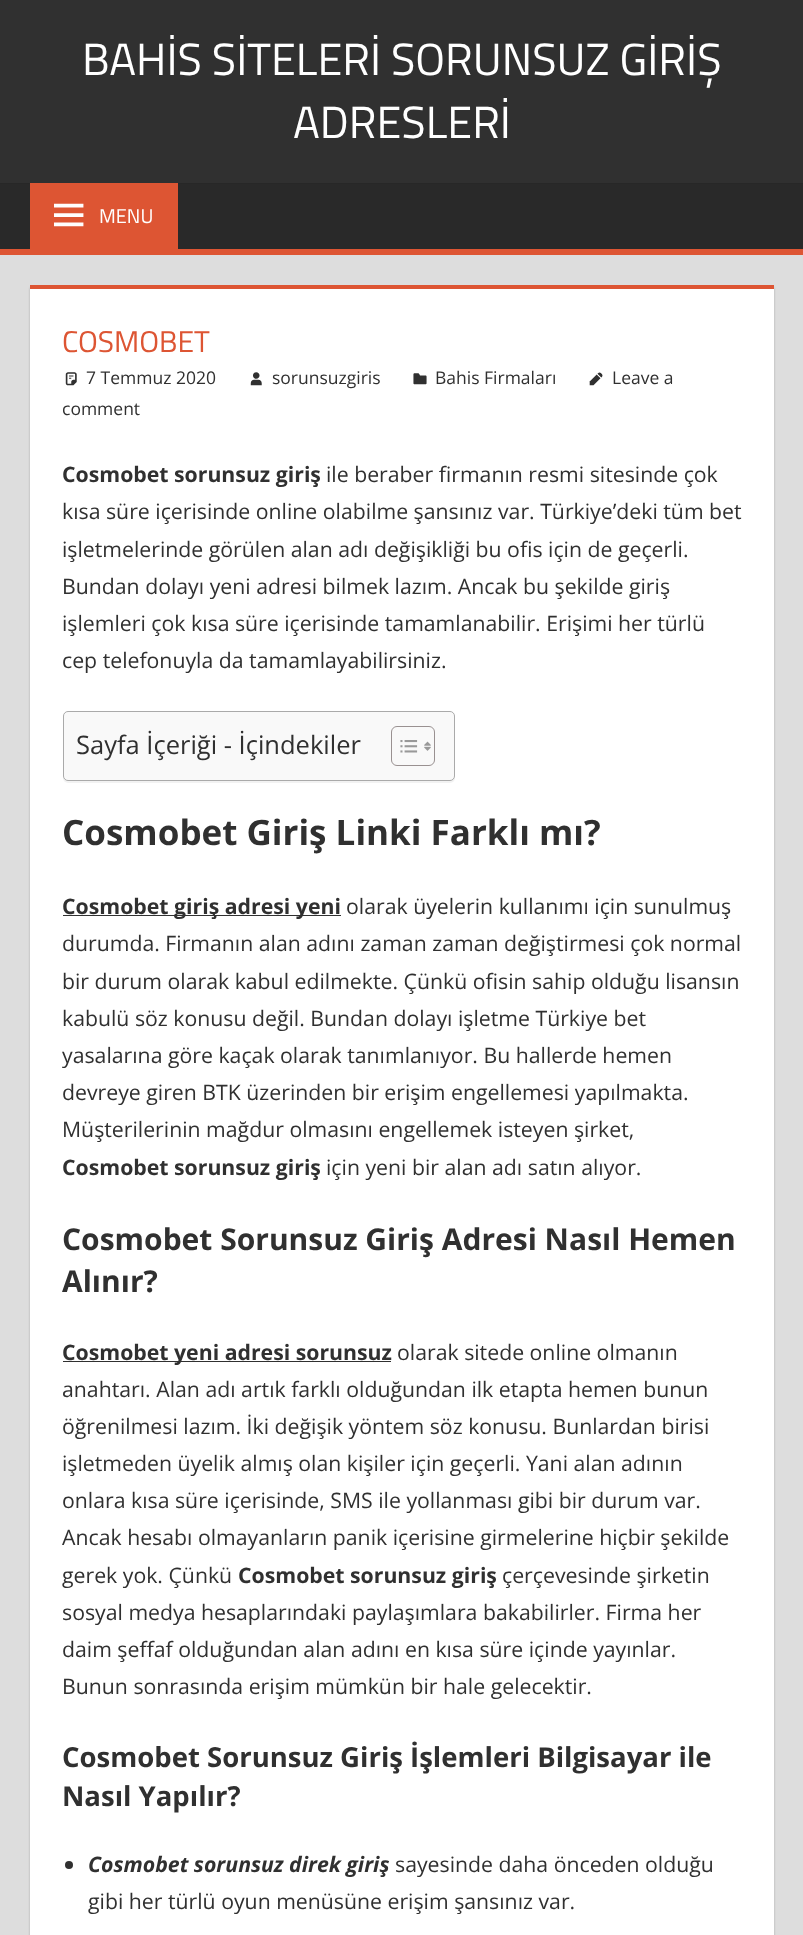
<svg xmlns="http://www.w3.org/2000/svg" width="803" height="1935" viewBox="0 0 803 1935">
  <rect width="100%" height="100%" fill="#ddd"/>
  <path d="M0 0h803v183H0z" fill="#303030"/>
  <path d="M0 184h803v65H0z" fill="#292929"/>
  <path d="M0 183h803v1H0z" fill="#272727"/>
  <path d="M0 249h803v6H0z" fill="#d53"/>
  <path d="M30 183h148v66H30z" fill="#d53"/>
  <image x="54" y="203" width="30" height="24" href="img/1.png"/>
  <path d="M30 288h744v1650H30z" fill="#aaa" filter="blur(1px)"/>
  <path d="M30 289h744v1646H30z" fill="#fff"/>
  <path d="M30 285h744v4H30z" fill="#d53"/>
  <image x="65" y="372" width="12" height="14" href="img/2.png"/>
  <image x="250" y="372" width="12" height="14" href="img/3.png"/>
  <image x="413" y="373" width="14" height="12" href="img/4.png"/>
  <image x="589" y="372" width="14" height="14" href="img/5.png"/>
  <rect x="63" y="713" width="392" height="70" rx="5" fill="#0000000d" filter="blur(0.5px)"/>
  <rect x="63.5" y="711.5" width="391" height="69" rx="4.5" fill="#f9f9f9" stroke="#aaa"/>
  <rect x="391.5" y="726.5" width="43" height="39" rx="5.5" fill="none" stroke="#999191"/>
  <image x="400" y="740" width="18" height="13" href="img/6.png"/>
  <image x="424" y="741" width="7" height="10" href="img/7.png"/>
  <path d="M63 915h278v1H63z" fill="#303030"/>
  <path d="M63 1361h328v1H63z" fill="#303030"/>
  <circle cx="69" cy="1865" r="4" fill="#303030"/>
  <g font-family="Titillium Web" font-size="45" fill="#fff">
    <text x="82" y="75">BAHİS SİTELERİ SORUNSUZ GİRİŞ</text>
    <text x="293" y="138">ADRESLERİ</text>
  </g>
  <text x="99" y="223" font-family="Titillium Web" font-size="20" fill="#fff">MENU</text>
  <text x="62" y="352" font-family="Titillium Web" font-size="30" fill="#d53">COSMOBET</text>
  <g font-family="Open Sans" font-size="17.5" fill="#303030">
    <text x="86" y="384">7 Temmuz 2020</text>
    <text x="272" y="384">sorunsuzgiris</text>
    <text x="435" y="384">Bahis Firmaları</text>
    <text x="612" y="384">Leave a</text>
    <text x="62" y="415">comment</text>
  </g>
  <text x="62" y="482" font-family="Open Sans" font-size="21.25" font-weight="bold" fill="#303030">Cosmobet sorunsuz giriş</text>
  <g font-family="Open Sans" font-size="21.25" fill="#303030">
    <text x="326" y="482">ile beraber firmanın resmi sitesinde çok</text>
    <text x="62" y="519">kısa süre içerisinde online olabilme şansınız var. Türkiye’deki tüm bet</text>
    <text x="62" y="557">işletmelerinde görülen alan adı değişikliği bu ofis için de geçerli.</text>
    <text x="62" y="594">Bundan dolayı yeni adresi bilmek lazım. Ancak bu şekilde giriş</text>
    <text x="62" y="631">işlemleri çok kısa süre içerisinde tamamlanabilir. Erişimi her türlü</text>
    <text x="62" y="668">cep telefonuyla da tamamlayabilirsiniz.</text>
  </g>
  <text x="76" y="754" font-family="Open Sans" font-size="25.5" fill="#303030">Sayfa İçeriği - İçindekiler</text>
  <text x="62" y="845" font-family="Open Sans" font-size="35" font-weight="bold" fill="#303030">Cosmobet Giriş Linki Farklı mı?</text>
  <text x="62" y="914" font-family="Open Sans" font-size="21.25" font-weight="bold" fill="#303030">Cosmobet giriş adresi yeni</text>
  <g font-family="Open Sans" font-size="21.25" fill="#303030">
    <text x="346" y="914">olarak üyelerin kullanımı için sunulmuş</text>
    <text x="62" y="951">durumda. Firmanın alan adını zaman zaman değiştirmesi çok normal</text>
    <text x="62" y="989">bir durum olarak kabul edilmekte. Çünkü ofisin sahip olduğu lisansın</text>
    <text x="62" y="1026">kabulü söz konusu değil. Bundan dolayı işletme Türkiye bet</text>
    <text x="62" y="1063">yasalarına göre kaçak olarak tanımlanıyor. Bu hallerde hemen</text>
    <text x="62" y="1100">devreye giren BTK üzerinden bir erişim engellemesi yapılmakta.</text>
    <text x="62" y="1137">Müşterilerinin mağdur olmasını engellemek isteyen şirket,</text>
  </g>
  <text x="62" y="1175" font-family="Open Sans" font-size="21.25" font-weight="bold" fill="#303030">Cosmobet sorunsuz giriş</text>
  <text x="326" y="1175" font-family="Open Sans" font-size="21.25" fill="#303030">için yeni bir alan adı satın alıyor.</text>
  <g font-family="Open Sans" font-size="30" font-weight="bold" fill="#303030">
    <text x="62" y="1250">Cosmobet Sorunsuz Giriş Adresi Nasıl Hemen</text>
    <text x="62" y="1292">Alınır?</text>
  </g>
  <text x="62" y="1360" font-family="Open Sans" font-size="21.25" font-weight="bold" fill="#303030">Cosmobet yeni adresi sorunsuz</text>
  <g font-family="Open Sans" font-size="21.25" fill="#303030">
    <text x="397" y="1360">olarak sitede online olmanın</text>
    <text x="62" y="1397">anahtarı. Alan adı artık farklı olduğundan ilk etapta hemen bunun</text>
    <text x="62" y="1434">öğrenilmesi lazım. İki değişik yöntem söz konusu. Bunlardan birisi</text>
    <text x="62" y="1471">işletmeden üyelik almış olan kişiler için geçerli. Yani alan adının</text>
    <text x="62" y="1508">onlara kısa süre içerisinde, SMS ile yollanması gibi bir durum var.</text>
    <text x="62" y="1545">Ancak hesabı olmayanların panik içerisine girmelerine hiçbir şekilde</text>
    <text x="62" y="1583">gerek yok. Çünkü</text>
  </g>
  <text x="238" y="1583" font-family="Open Sans" font-size="21.25" font-weight="bold" fill="#303030">Cosmobet sorunsuz giriş</text>
  <g font-family="Open Sans" font-size="21.25" fill="#303030">
    <text x="502" y="1583">çerçevesinde şirketin</text>
    <text x="62" y="1620">sosyal medya hesaplarındaki paylaşımlara bakabilirler. Firma her</text>
    <text x="62" y="1657">daim şeffaf olduğundan alan adını en kısa süre içinde yayınlar.</text>
    <text x="62" y="1694">Bunun sonrasında erişim mümkün bir hale gelecektir.</text>
  </g>
  <g font-family="Open Sans" font-size="27.5" font-weight="bold" fill="#303030">
    <text x="62" y="1767">Cosmobet Sorunsuz Giriş İşlemleri Bilgisayar ile</text>
    <text x="62" y="1806">Nasıl Yapılır?</text>
  </g>
  <text x="88" y="1872" font-family="Open Sans" font-size="21.25" font-weight="bold" font-style="italic" fill="#303030">Cosmobet sorunsuz direk giriş</text>
  <g font-family="Open Sans" font-size="21.25" fill="#303030">
    <text x="395" y="1872">sayesinde daha önceden olduğu</text>
    <text x="88" y="1909">gibi her türlü oyun menüsüne erişim şansınız var.</text>
  </g>
</svg>
